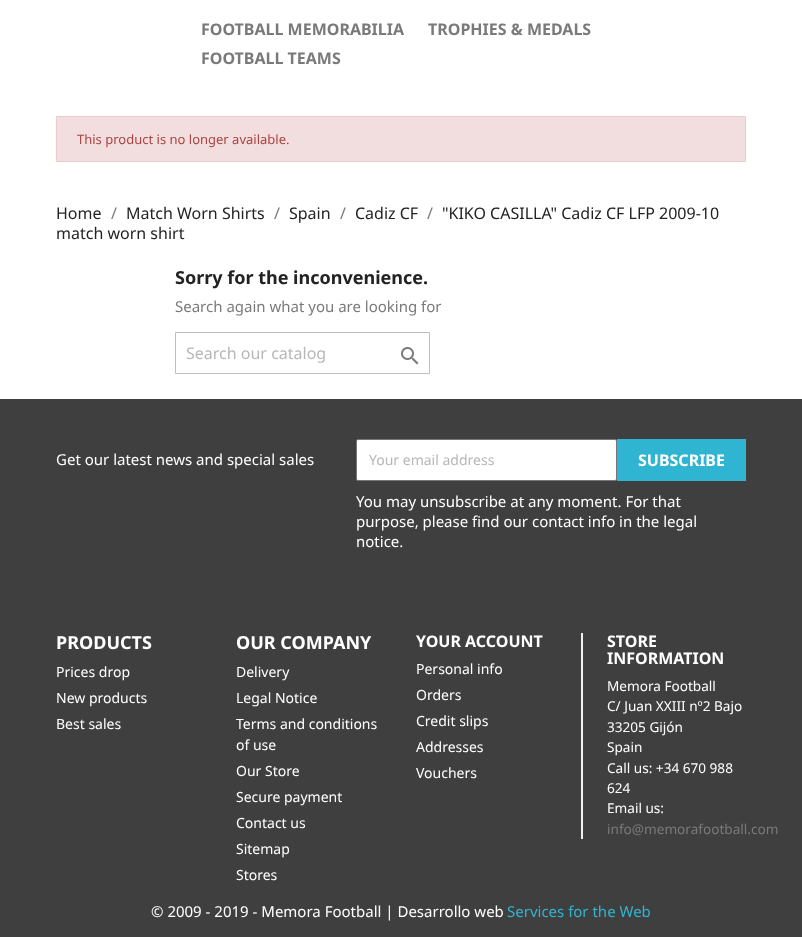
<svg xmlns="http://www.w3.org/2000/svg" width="802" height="937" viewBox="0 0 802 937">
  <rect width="100%" height="100%" fill="#fff"/>
  <path d="M56.5 116.5h689v45H56.5z" fill="#f2dede" stroke="#ebcccc"/>
  <path d="M175.5 332.5h254v41H175.5z" fill="none" stroke="#bfbfbf"/>
  <image x="401" y="347" width="18" height="18" href="img/1.png"/>
  <path d="M0 399h802v538H0z" fill="#3f3f3f"/>
  <rect x="356.5" y="439.5" width="260" height="41" rx="1.5" fill="#fff" stroke="#767676"/>
  <path d="M617 439h129v42H617z" fill="#2fb5d2"/>
  <path d="M581 633h2v206H581z" fill="#f1f1f1"/>
  <g font-family="Noto Sans" font-size="16" font-weight="bold" fill="#7a7a7a">
    <text x="201" y="35">FOOTBALL MEMORABILIA</text>
    <text x="428" y="35">TROPHIES &amp; MEDALS</text>
    <text x="201" y="64">FOOTBALL TEAMS</text>
  </g>
  <text x="77" y="144" font-family="Noto Sans" font-size="13" fill="#a94442">This product is no longer available.</text>
  <text x="56" y="219" font-family="Noto Sans" font-size="16" fill="#232323">Home</text>
  <text x="111" y="219" font-family="Noto Sans" font-size="16" fill="#7a7a7a">/</text>
  <text x="126" y="219" font-family="Noto Sans" font-size="16" fill="#232323">Match Worn Shirts</text>
  <text x="274" y="219" font-family="Noto Sans" font-size="16" fill="#7a7a7a">/</text>
  <text x="289" y="219" font-family="Noto Sans" font-size="16" fill="#232323">Spain</text>
  <text x="340" y="219" font-family="Noto Sans" font-size="16" fill="#7a7a7a">/</text>
  <text x="355" y="219" font-family="Noto Sans" font-size="16" fill="#232323">Cadiz CF</text>
  <text x="427" y="219" font-family="Noto Sans" font-size="16" fill="#7a7a7a">/</text>
  <g font-family="Noto Sans" font-size="16" fill="#232323">
    <text x="442" y="219">"KIKO CASILLA" Cadiz CF LFP 2009-10</text>
    <text x="56" y="239">match worn shirt</text>
  </g>
  <text x="175" y="284" font-family="Noto Sans" font-size="18" font-weight="bold" fill="#232323">Sorry for the inconvenience.</text>
  <text x="175" y="312" font-family="Noto Sans" font-size="15" fill="#7a7a7a">Search again what you are looking for</text>
  <text x="186" y="359" font-family="Noto Sans" font-size="16" fill="#b7b7b7">Search our catalog</text>
  <text x="56" y="465" font-family="Noto Sans" font-size="15" fill="#fff">Get our latest news and special sales</text>
  <text x="369" y="465" font-family="Noto Sans" font-size="14" fill="#b7b7b7">Your email address</text>
  <text x="638" y="466" font-family="Noto Sans" font-size="16" font-weight="bold" fill="#fff">SUBSCRIBE</text>
  <g font-family="Noto Sans" font-size="15" fill="#fff">
    <text x="356" y="507">You may unsubscribe at any moment. For that</text>
    <text x="356" y="527">purpose, please find our contact info in the legal</text>
    <text x="356" y="547">notice.</text>
  </g>
  <text x="56" y="649" font-family="Noto Sans" font-size="18" font-weight="bold" fill="#fff">PRODUCTS</text>
  <g font-family="Noto Sans" font-size="14" fill="#fff">
    <text x="56" y="677">Prices drop</text>
    <text x="56" y="703">New products</text>
    <text x="56" y="729">Best sales</text>
  </g>
  <text x="236" y="649" font-family="Noto Sans" font-size="18" font-weight="bold" fill="#fff">OUR COMPANY</text>
  <g font-family="Noto Sans" font-size="14" fill="#fff">
    <text x="236" y="677">Delivery</text>
    <text x="236" y="703">Legal Notice</text>
    <text x="236" y="729">Terms and conditions</text>
    <text x="236" y="750">of use</text>
    <text x="236" y="776">Our Store</text>
    <text x="236" y="802">Secure payment</text>
    <text x="236" y="828">Contact us</text>
    <text x="236" y="854">Sitemap</text>
    <text x="236" y="880">Stores</text>
  </g>
  <text x="416" y="647" font-family="Noto Sans" font-size="16" font-weight="bold" fill="#fff">YOUR ACCOUNT</text>
  <g font-family="Noto Sans" font-size="14" fill="#fff">
    <text x="416" y="674">Personal info</text>
    <text x="416" y="700">Orders</text>
    <text x="416" y="726">Credit slips</text>
    <text x="416" y="752">Addresses</text>
    <text x="416" y="778">Vouchers</text>
  </g>
  <g font-family="Noto Sans" font-size="16" font-weight="bold" fill="#fff">
    <text x="607" y="647">STORE</text>
    <text x="607" y="664">INFORMATION</text>
  </g>
  <g font-family="Noto Sans" font-size="13.6" fill="#fff">
    <text x="607" y="691">Memora Football</text>
    <text x="607" y="711">C/ Juan XXIII nº2 Bajo</text>
    <text x="607" y="732">33205 Gijón</text>
    <text x="607" y="752">Spain</text>
    <text x="607" y="773">Call us: +34 670 988</text>
    <text x="607" y="793">624</text>
    <text x="607" y="813">Email us:</text>
  </g>
  <text x="607" y="834" font-family="Noto Sans" font-size="13.6" fill="#7a7a7a">info@memorafootball.com</text>
  <text x="151" y="917" font-family="Noto Sans" font-size="15" fill="#fff">© 2009 - 2019 - Memora Football | Desarrollo web</text>
  <text x="507" y="917" font-family="Noto Sans" font-size="15" fill="#2fb5d2">Services for the Web</text>
</svg>
